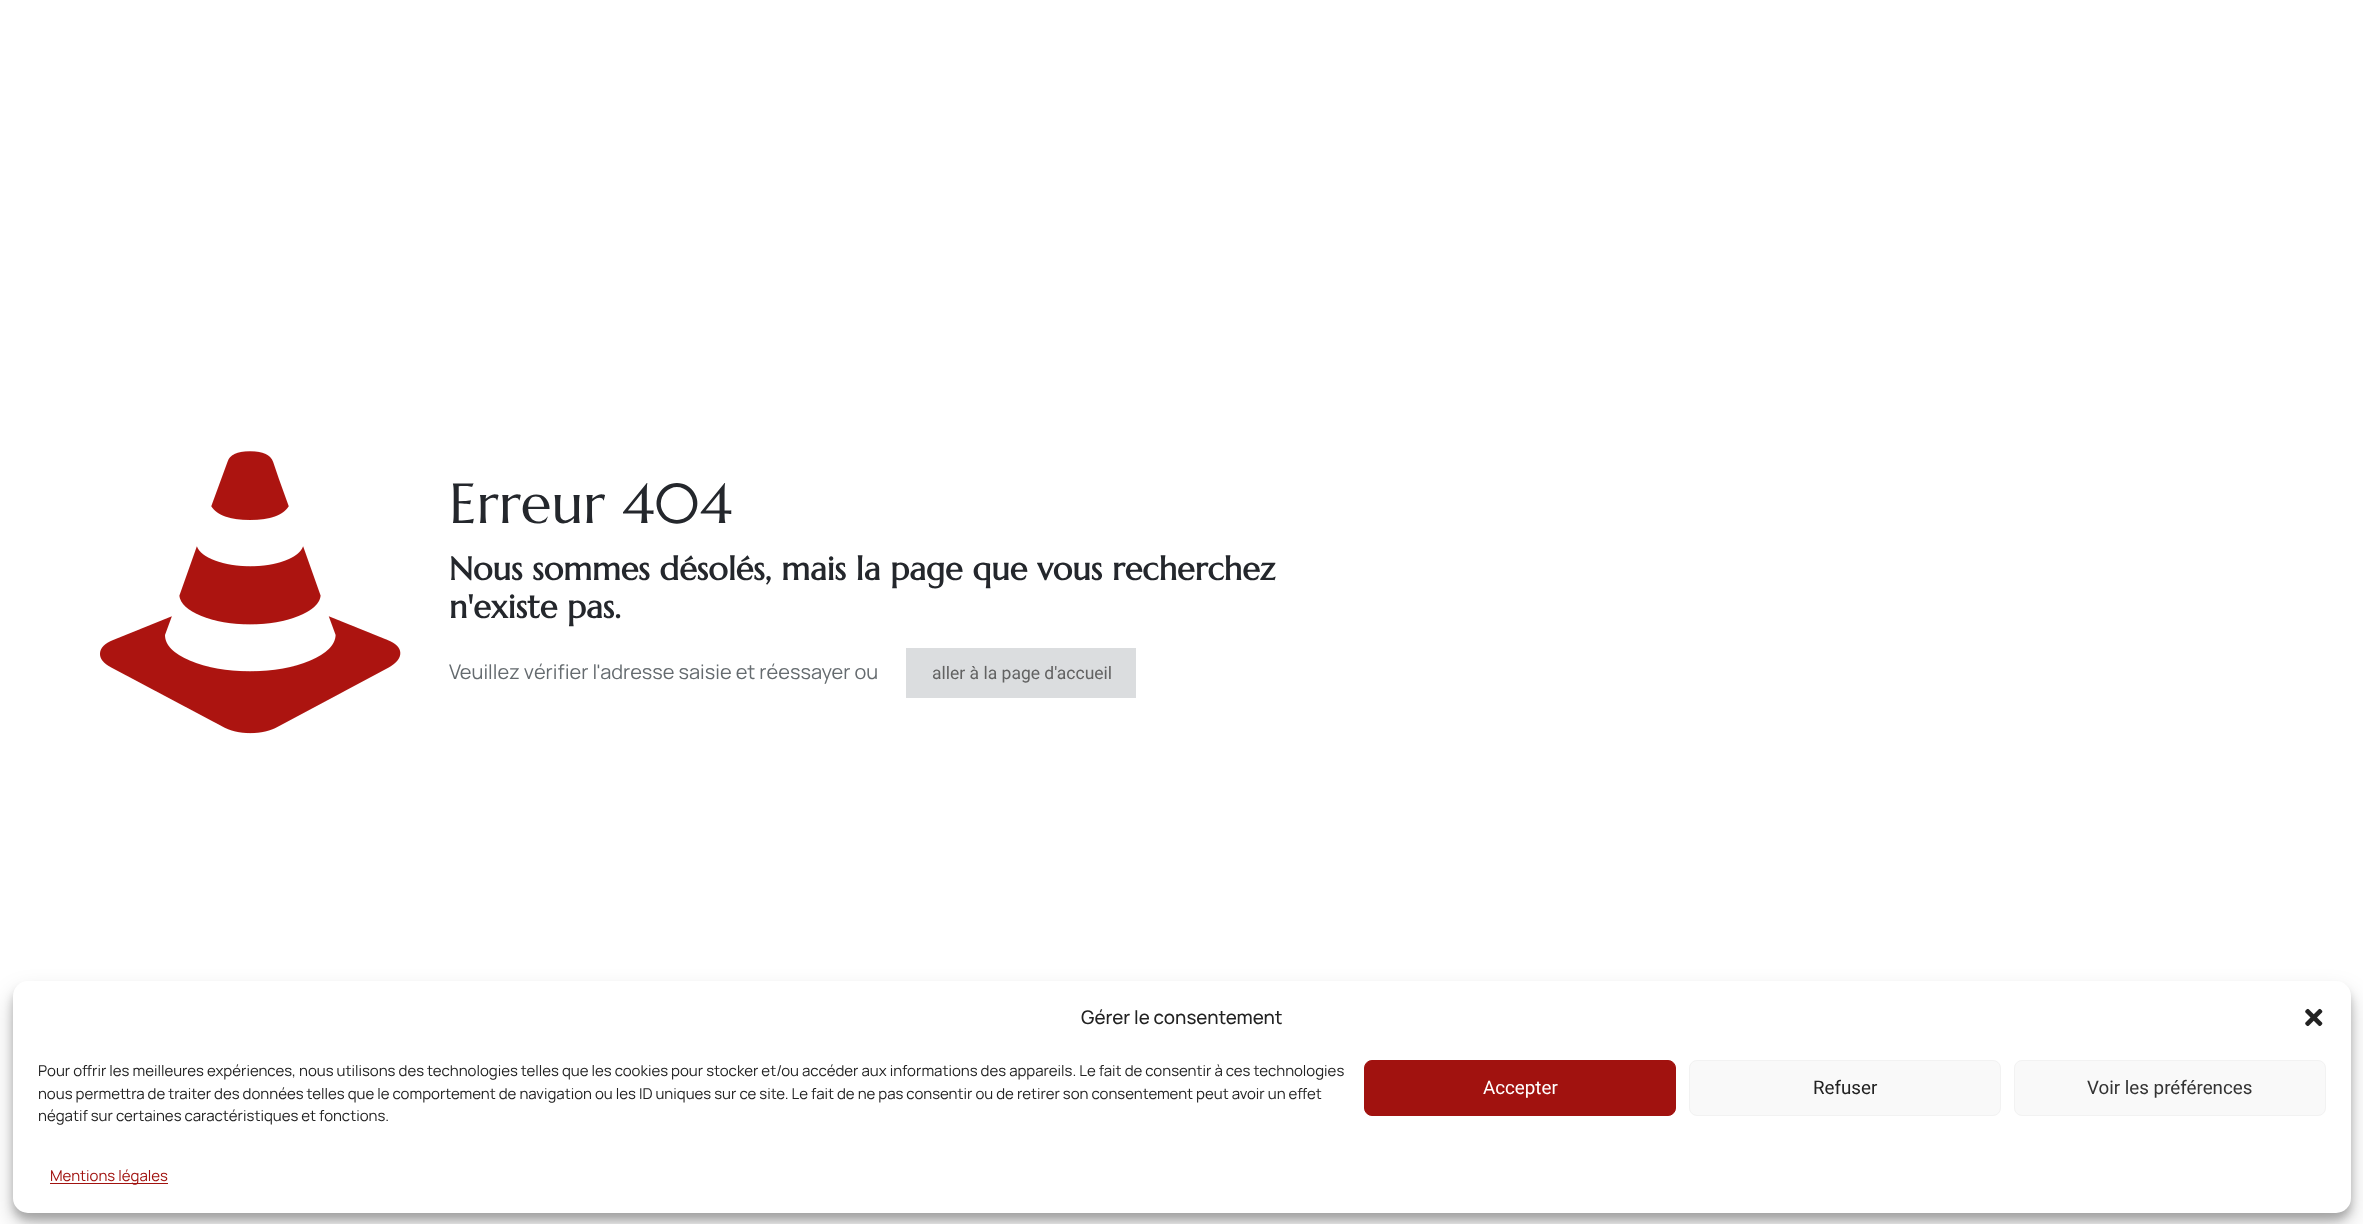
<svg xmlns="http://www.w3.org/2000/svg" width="2363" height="1224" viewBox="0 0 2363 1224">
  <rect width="100%" height="100%" fill="#fff"/>
  <image x="100" y="451" width="301" height="283" href="img/1.png"/>
  <path d="M906 648h230v50H906z" fill="#dbdddf"/>
  <rect x="13" y="989" width="2338" height="231" rx="15" fill="#0000003b" filter="blur(4px)"/>
  <rect x="13" y="994" width="2338" height="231" rx="15" fill="#00000030" filter="blur(12.5px)"/>
  <rect x="13" y="981" width="2338" height="232" rx="15" fill="#fff"/>
  <image x="2305" y="1008" width="18" height="19" href="img/2.png"/>
  <rect x="1364.5" y="1060.5" width="311" height="55" rx="7.5" fill="#a1120f" stroke="#a1120f"/>
  <rect x="1689.5" y="1060.5" width="311" height="55" rx="7.5" fill="#f9f9f9" stroke="#f2f2f2"/>
  <rect x="2014.5" y="1060.5" width="311" height="55" rx="7.5" fill="#f9f9f9" stroke="#f2f2f2"/>
  <path d="M50 1183h118v1H50z" fill="#a1120f"/>
  <text x="449" y="523" font-family="Marcellus" font-size="56.25" fill="#24272c">Erreur 404</text>
  <g font-family="Marcellus" font-size="32.5" font-weight="bold" fill="#24272c">
    <text x="449" y="580">Nous sommes désolés, mais la page que vous recherchez</text>
    <text x="449" y="618">n'existe pas.</text>
  </g>
  <text x="449" y="679" font-family="Manrope" font-size="20" fill="#656b6f">Veuillez vérifier l'adresse saisie et réessayer ou</text>
  <text x="932" y="679" font-family="Roboto" font-size="17.5" fill="#626262">aller à la page d'accueil</text>
  <text x="1081" y="1024" font-family="Manrope" font-size="18.75" font-weight="500" fill="#222">Gérer le consentement</text>
  <g font-family="Manrope" font-size="15" fill="#222">
    <text x="38" y="1076">Pour offrir les meilleures expériences, nous utilisons des technologies telles que les cookies pour stocker et/ou accéder aux informations des appareils. Le fait de consentir à ces technologies</text>
    <text x="38" y="1099">nous permettra de traiter des données telles que le comportement de navigation ou les ID uniques sur ce site. Le fait de ne pas consentir ou de retirer son consentement peut avoir un effet</text>
    <text x="38" y="1121">négatif sur certaines caractéristiques et fonctions.</text>
  </g>
  <text x="1483" y="1094" font-family="Roboto" font-size="18.75" fill="#fff">Accepter</text>
  <text x="1813" y="1094" font-family="Roboto" font-size="18.75" fill="#222">Refuser</text>
  <text x="2087" y="1094" font-family="Roboto" font-size="18.75" fill="#333">Voir les préférences</text>
  <text x="50" y="1181" font-family="Manrope" font-size="15" fill="#a1120f">Mentions légales</text>
</svg>
